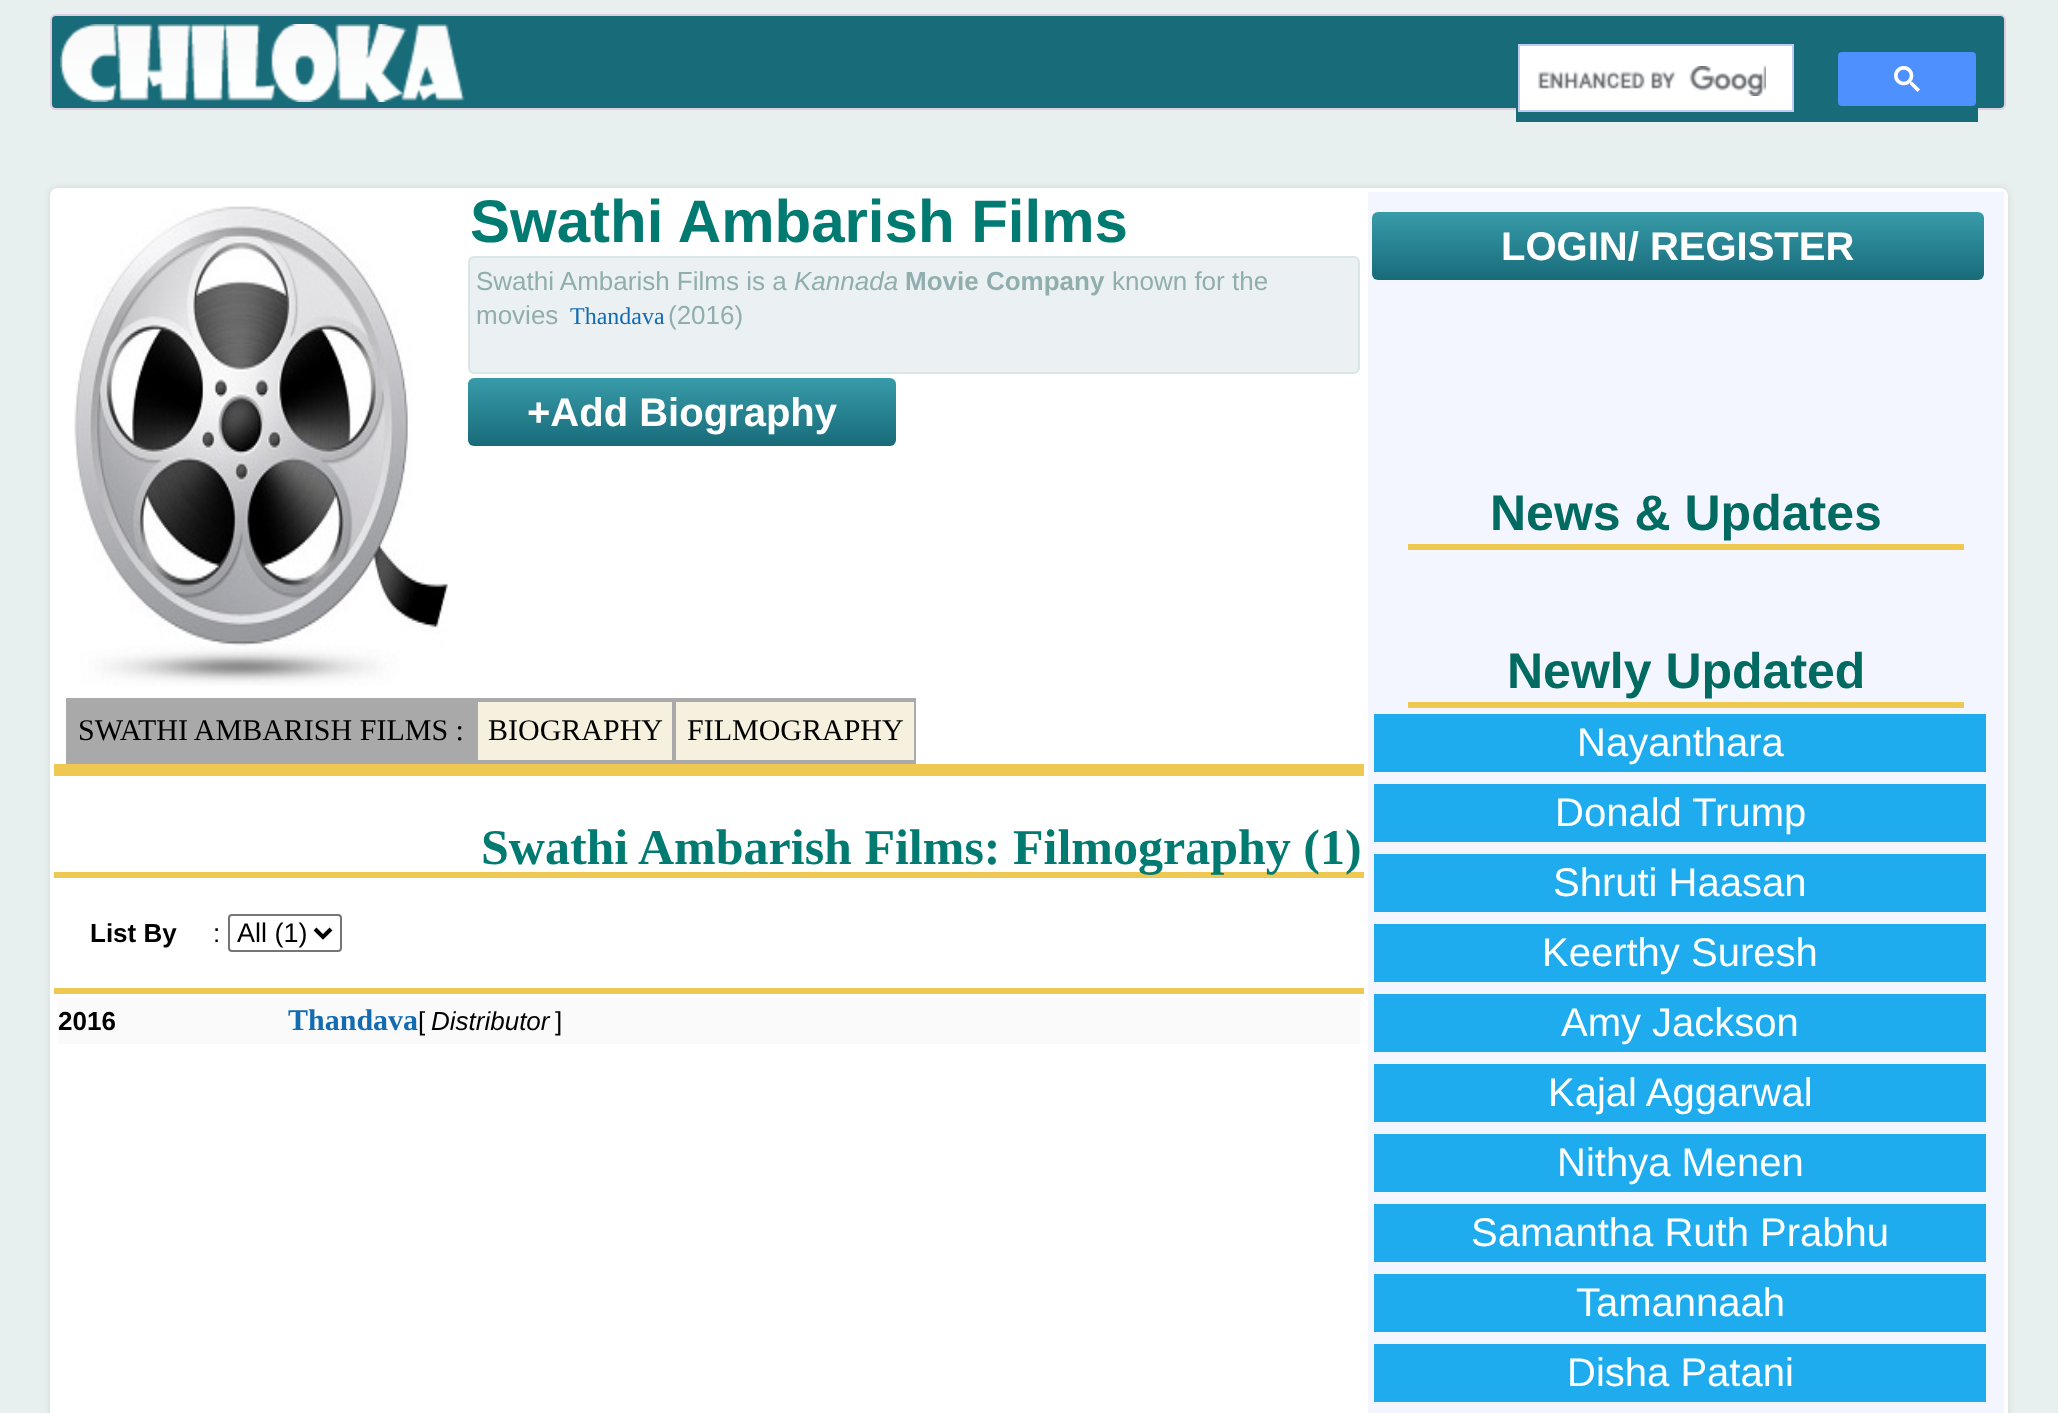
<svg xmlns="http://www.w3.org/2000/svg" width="2058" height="1413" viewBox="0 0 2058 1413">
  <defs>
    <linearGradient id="g1" gradientUnits="userSpaceOnUse" x1="682" y1="378" x2="682" y2="446"><stop offset="0" stop-color="#389ba9"/><stop offset="1" stop-color="#186b79"/></linearGradient>
    <linearGradient id="g2" gradientUnits="userSpaceOnUse" x1="1678" y1="212" x2="1678" y2="280"><stop offset="0" stop-color="#389ba9"/><stop offset="1" stop-color="#186b79"/></linearGradient>
  </defs>
  <rect width="100%" height="100%" fill="#e7efef"/>
  <rect x="51" y="15" width="1954" height="94" rx="5" fill="#186b79" stroke="#dcd" stroke-width="2"/>
  <image x="60" y="24" width="405" height="78" href="img/1.png"/>
  <path d="M1516 108h462v14H1516z" fill="#186b79"/>
  <path d="M1519 45h274v66H1519z" fill="#fff" stroke="#bccdf0" stroke-width="2"/>
  <image x="1538" y="66" width="228" height="30" href="img/2.png"/>
  <rect x="1839" y="53" width="136" height="52" rx="3" fill="#4d90fe" stroke="#4d90fe" stroke-width="2"/>
  <image x="1894" y="66" width="26" height="26" href="img/3.png"/>
  <rect x="48" y="186" width="1962" height="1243" rx="10" fill="#dbe2e2" filter="blur(2px)"/>
  <rect x="50" y="188" width="1958" height="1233" rx="8" fill="#fff"/>
  <image x="74" y="206" width="375" height="480" href="img/4.png"/>
  <rect x="469" y="257" width="890" height="116" rx="5" fill="#ebf0f2" stroke="#dae5e5" stroke-width="2"/>
  <rect x="468" y="378" width="428" height="68" rx="6" fill="url(#g1)"/>
  <path d="M68 702h406v58H68z" fill="#a9a9a9"/>
  <path d="M66 698h850v4H66z" fill="#aaa"/>
  <path d="M474 698h2v66H474z" fill="#aaa"/>
  <path d="M66 760h410v4H66z" fill="#aaa"/>
  <path d="M66 698h2v66H66z" fill="#aaa"/>
  <path d="M478 702h194v58H478z" fill="#f5f1de"/>
  <path d="M672 698h2v66H672z" fill="#aaa"/>
  <path d="M476 760h198v4H476z" fill="#aaa"/>
  <path d="M476 698h2v66H476z" fill="#aaa"/>
  <path d="M676 702h238v58H676z" fill="#f5f1de"/>
  <path d="M914 698h2v66H914z" fill="#aaa"/>
  <path d="M674 760h242v4H674z" fill="#aaa"/>
  <path d="M674 698h2v66H674z" fill="#aaa"/>
  <path d="M54 764h1310v12H54z" fill="#eec850"/>
  <path d="M54 872h1310v6H54z" fill="#eec850"/>
  <rect x="229" y="915" width="112" height="36" rx="3" fill="none" stroke="#767676" stroke-width="2"/>
  <path d="M315 929L323 937L331 929" fill="none" stroke="#000" stroke-width="4"/>
  <path d="M54 988h1310v6H54z" fill="#eec850"/>
  <path d="M58 998h1302v46H58z" fill="#fafafa"/>
  <path d="M1368 192h636v1221H1368z" fill="#f4f6ff"/>
  <rect x="1372" y="212" width="612" height="68" rx="6" fill="url(#g2)"/>
  <path d="M1408 544h556v6H1408z" fill="#eec850"/>
  <path d="M1408 702h556v6H1408z" fill="#eec850"/>
  <path d="M1374 714h612v58H1374z" fill="#1eacee"/>
  <path d="M1374 784h612v58H1374z" fill="#1eacee"/>
  <path d="M1374 854h612v58H1374z" fill="#1eacee"/>
  <path d="M1374 924h612v58H1374z" fill="#1eacee"/>
  <path d="M1374 994h612v58H1374z" fill="#1eacee"/>
  <path d="M1374 1064h612v58H1374z" fill="#1eacee"/>
  <path d="M1374 1134h612v58H1374z" fill="#1eacee"/>
  <path d="M1374 1204h612v58H1374z" fill="#1eacee"/>
  <path d="M1374 1274h612v58H1374z" fill="#1eacee"/>
  <path d="M1374 1344h612v58H1374z" fill="#1eacee"/>
  <text x="470" y="242" font-family="Liberation Sans" font-size="60" font-weight="bold" fill="#017a71">Swathi Ambarish Films</text>
  <text x="476" y="290" font-family="Liberation Sans" font-size="26" fill="#90aead">Swathi Ambarish Films is a</text>
  <text x="794" y="290" font-family="Liberation Sans" font-size="26" font-style="italic" fill="#90aead">Kannada</text>
  <text x="905" y="290" font-family="Liberation Sans" font-size="26" font-weight="bold" fill="#90aead">Movie Company</text>
  <g font-family="Liberation Sans" font-size="26" fill="#90aead">
    <text x="1112" y="290">known for the</text>
    <text x="476" y="324">movies</text>
  </g>
  <text x="570" y="324" font-family="Liberation Serif" font-size="24" fill="#136cb2">Thandava</text>
  <text x="668" y="324" font-family="Liberation Sans" font-size="26" fill="#90aead">(2016)</text>
  <text x="527" y="426" font-family="Liberation Sans" font-size="40" font-weight="bold" fill="#fff">+Add Biography</text>
  <g font-family="Liberation Serif" font-size="30" fill="#000">
    <text x="78" y="740">SWATHI AMBARISH FILMS :</text>
    <text x="488" y="740">BIOGRAPHY</text>
    <text x="687" y="740">FILMOGRAPHY</text>
  </g>
  <text x="481" y="864" font-family="Liberation Serif" font-size="50" font-weight="bold" fill="#017a71">Swathi Ambarish Films: Filmography (1)</text>
  <text x="90" y="942" font-family="Liberation Sans" font-size="26" font-weight="bold" fill="#000">List By</text>
  <text x="213" y="942" font-family="Liberation Sans" font-size="26" fill="#000">:</text>
  <text x="237" y="942" font-family="Liberation Sans" font-size="27" fill="#000">All (1)</text>
  <text x="58" y="1030" font-family="Liberation Sans" font-size="26" font-weight="bold" fill="#000">2016</text>
  <text x="288" y="1030" font-family="Liberation Serif" font-size="30" font-weight="bold" fill="#136cb2">Thandava</text>
  <text x="418" y="1030" font-family="Liberation Sans" font-size="26" fill="#000">[</text>
  <text x="431" y="1030" font-family="Liberation Sans" font-size="26" font-style="italic" fill="#000">Distributor</text>
  <text x="555" y="1030" font-family="Liberation Sans" font-size="26" fill="#000">]</text>
  <text x="1501" y="260" font-family="Liberation Sans" font-size="40" font-weight="bold" fill="#fff">LOGIN/ REGISTER</text>
  <g font-family="Liberation Sans" font-size="50" font-weight="bold" fill="#016a61">
    <text x="1490" y="530">News &amp; Updates</text>
    <text x="1507" y="688">Newly Updated</text>
  </g>
  <g font-family="Liberation Sans" font-size="40" fill="#fff">
    <text x="1577" y="756">Nayanthara</text>
    <text x="1555" y="826">Donald Trump</text>
    <text x="1553" y="896">Shruti Haasan</text>
    <text x="1542" y="966">Keerthy Suresh</text>
    <text x="1561" y="1036">Amy Jackson</text>
    <text x="1548" y="1106">Kajal Aggarwal</text>
    <text x="1557" y="1176">Nithya Menen</text>
    <text x="1471" y="1246">Samantha Ruth Prabhu</text>
    <text x="1576" y="1316">Tamannaah</text>
    <text x="1567" y="1386">Disha Patani</text>
  </g>
</svg>
